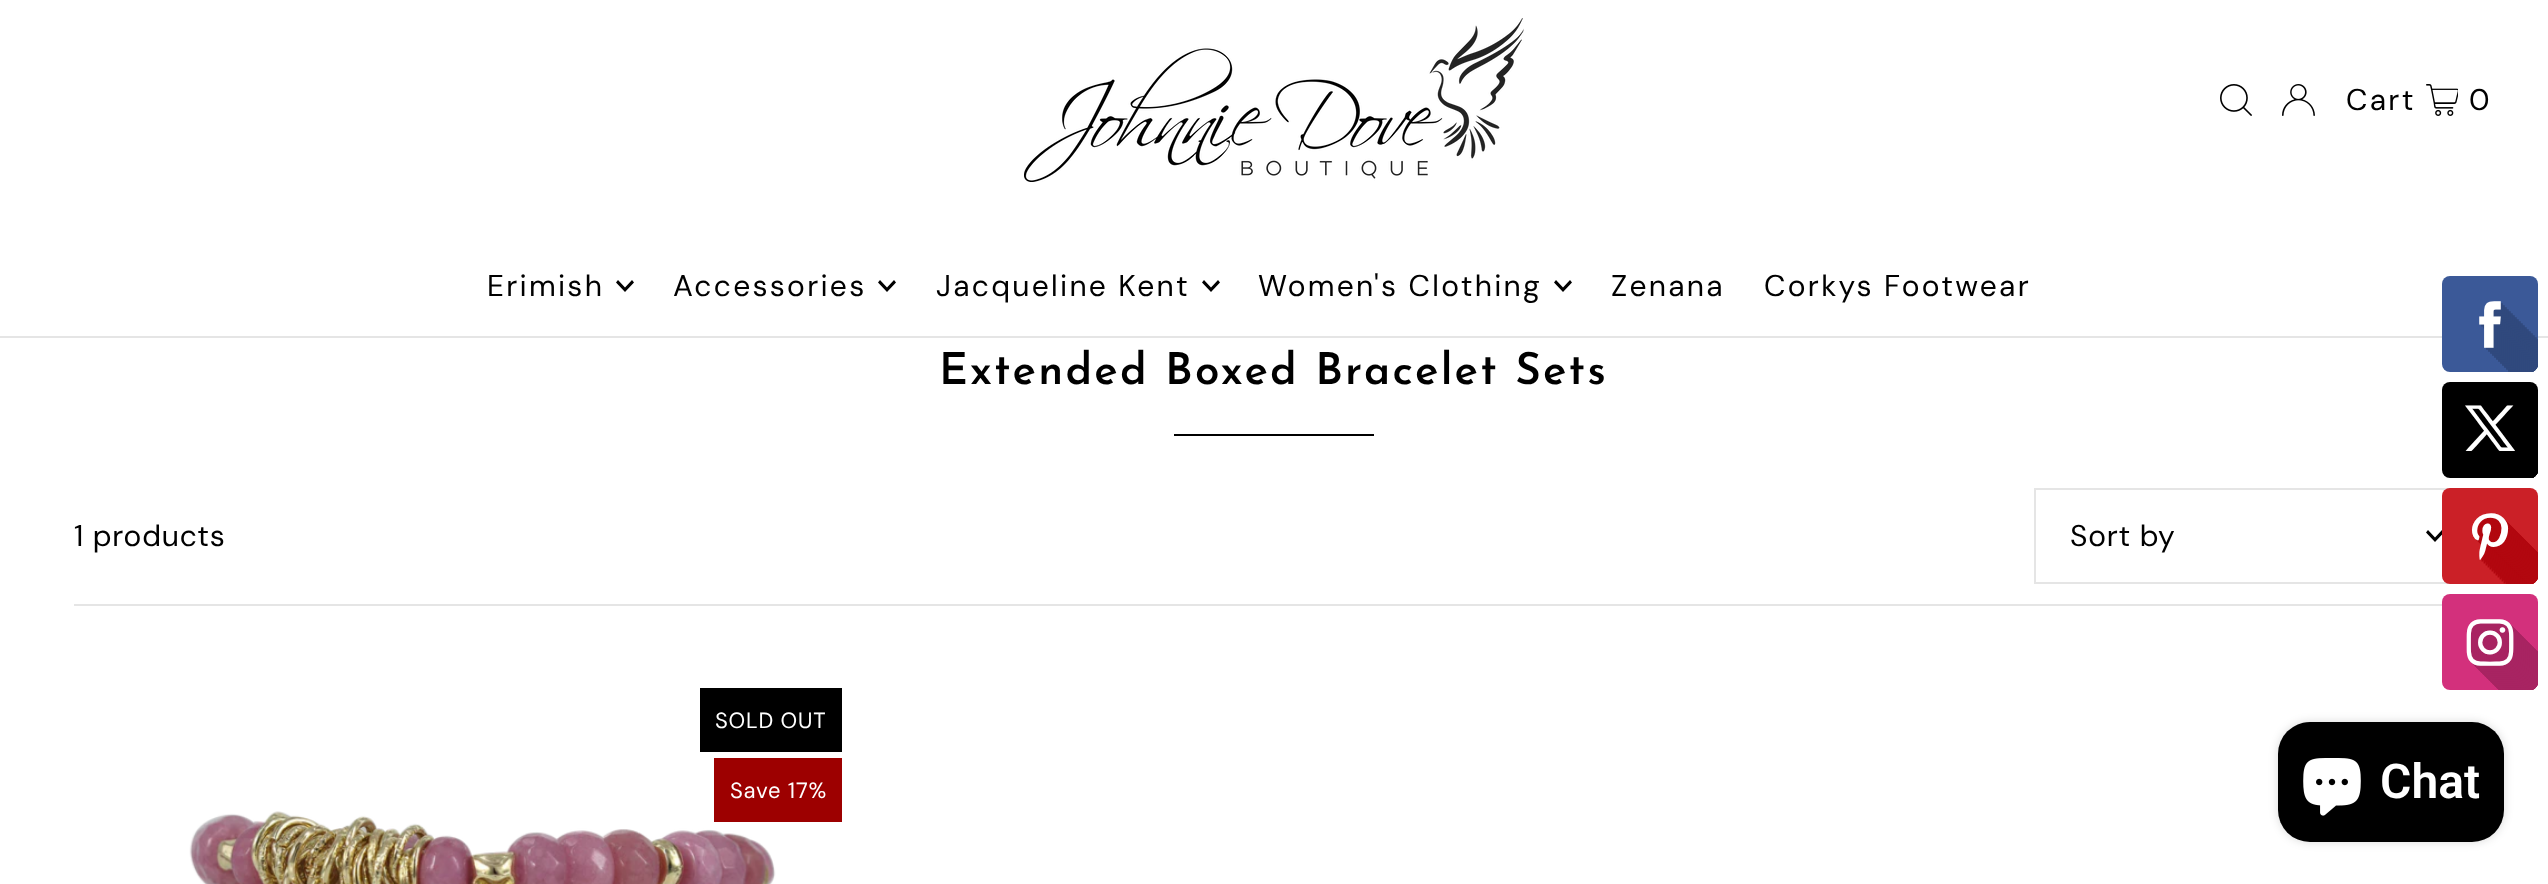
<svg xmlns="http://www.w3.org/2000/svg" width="2548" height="884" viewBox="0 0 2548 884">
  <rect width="100%" height="100%" fill="#fff"/>
  <path d="M0 336h2548v2H0z" fill="#e5e5e5"/>
  <image x="1024" y="18" width="500" height="164" href="img/1.png"/>
  <image x="2220" y="84" width="32" height="32" href="img/2.png"/>
  <image x="2282" y="84" width="33" height="32" href="img/3.png"/>
  <image x="2426" y="84" width="32" height="32" href="img/4.png"/>
  <path d="M632 280L625 287.5L618 280L616 282.5L625 292L634 282.5Z" fill="#000"/>
  <path d="M894 280L887 287.5L880 280L878 282.5L887 292L896 282.5Z" fill="#000"/>
  <path d="M1218 280L1211 287.5L1204 280L1202 282.5L1211 292L1220 282.5Z" fill="#000"/>
  <path d="M1570 280L1563 287.5L1556 280L1554 282.5L1563 292L1572 282.5Z" fill="#000"/>
  <path d="M1174 434h200v2H1174z" fill="#000"/>
  <path d="M74 604h2368v2H74z" fill="#e5e5e5"/>
  <path d="M2035 489h438v94H2035z" fill="none" stroke="#e5e5e5" stroke-width="2"/>
  <path d="M2442 530L2435 537.5L2428 530L2426 532.5L2435 542L2444 532.5Z" fill="#000"/>
  <path d="M700 688h142v64H700z" fill="#000"/>
  <image x="189" y="811" width="587" height="73" href="img/5.png"/>
  <path d="M714 758h128v64H714z" fill="#9d0000"/>
  <image x="2442" y="276" width="96" height="414" href="img/6.png"/>
  <rect x="2278" y="722" width="226" height="120" rx="32" fill="#00000026" filter="blur(5px)"/>
  <rect x="2278" y="722" width="226" height="120" rx="32" fill="#000"/>
  <image x="2303" y="758" width="58" height="58" href="img/7.png"/>
  <g font-family="'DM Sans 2'" font-size="30" letter-spacing="2.25" fill="#000">
    <text x="2346" y="110">Cart</text>
    <text x="2469" y="110">0</text>
    <text x="487" y="296">Erimish</text>
    <text x="673" y="296">Accessories</text>
    <text x="936" y="296">Jacqueline Kent</text>
    <text x="1258" y="296">Women's Clothing</text>
    <text x="1611" y="296">Zenana</text>
    <text x="1764" y="296">Corkys Footwear</text>
  </g>
  <text x="939" y="384" font-family="Josefin Sans" font-size="44" font-weight="600" letter-spacing="2.2" fill="#000">Extended Boxed Bracelet Sets</text>
  <g font-family="'DM Sans 2'" font-size="30" letter-spacing="0.75" fill="#000">
    <text x="74" y="546">1 products</text>
    <text x="2070" y="546">Sort by</text>
  </g>
  <g font-family="DM Sans" font-size="22" letter-spacing="0.75" fill="#fff">
    <text x="715" y="728">SOLD OUT</text>
    <text x="730" y="798">Save 17%</text>
  </g>
  <text x="2380" y="798" font-family="Roboto" font-size="48" font-weight="600" fill="#fff">Chat</text>
</svg>
